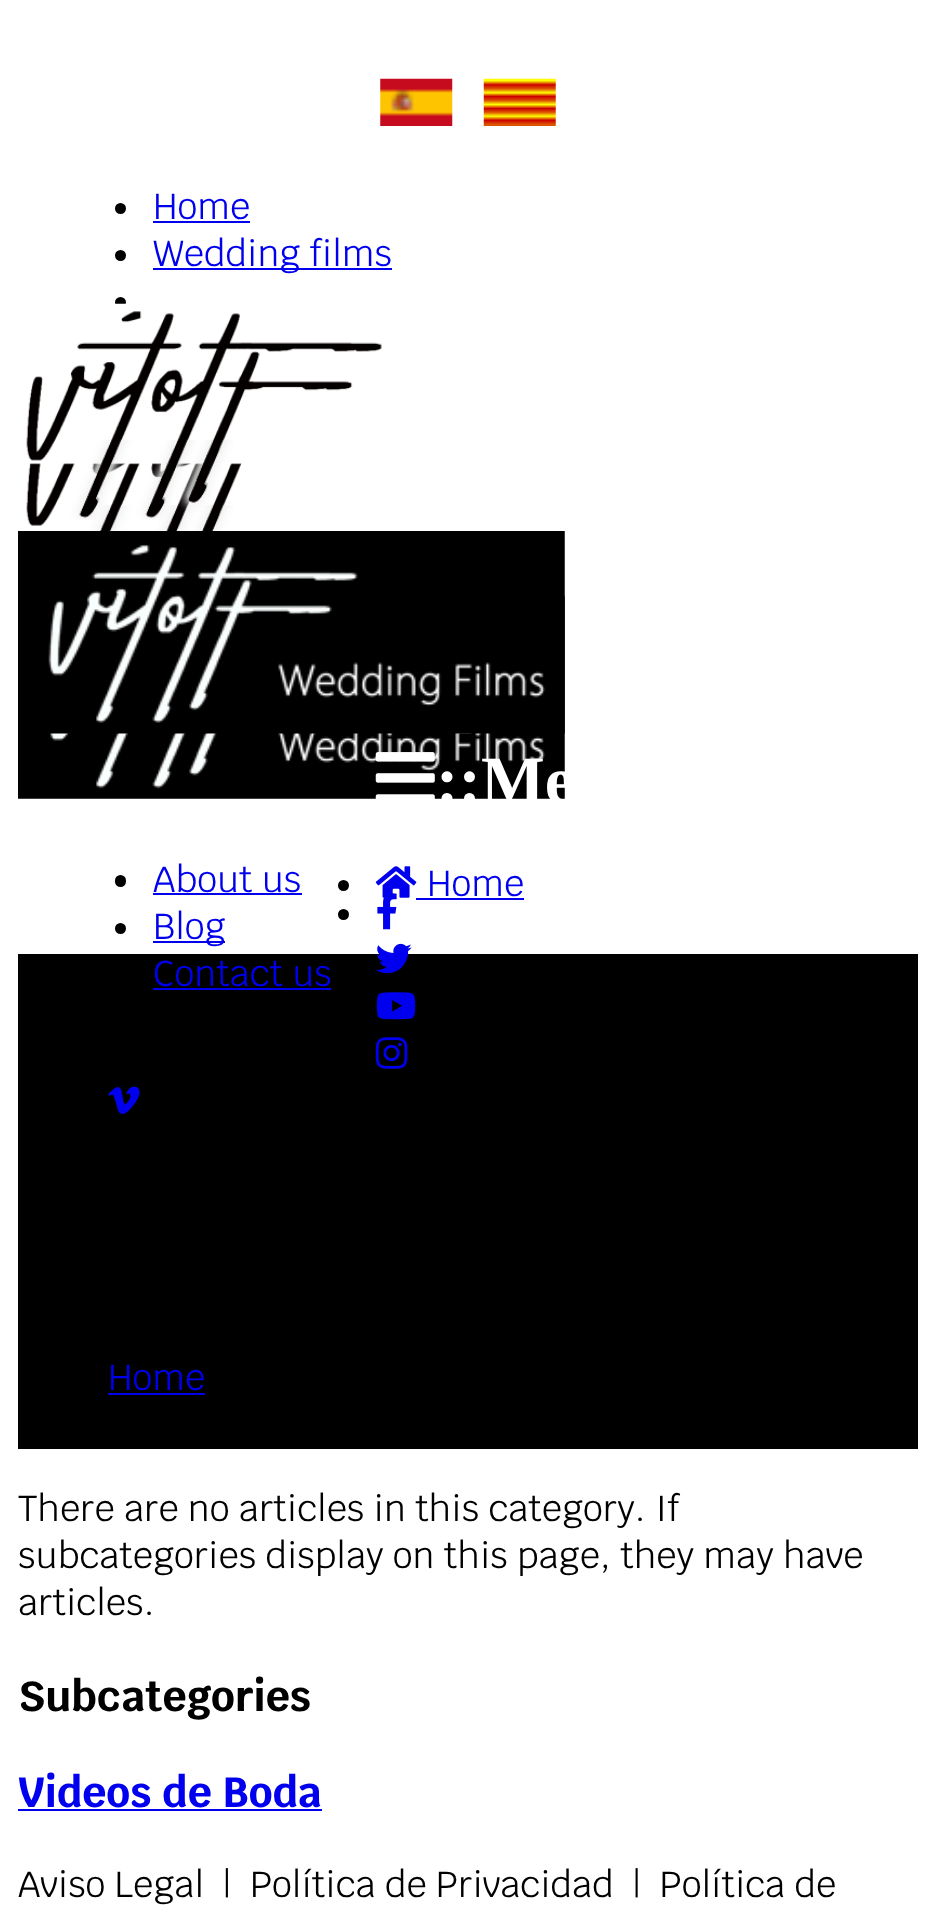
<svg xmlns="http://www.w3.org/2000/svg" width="936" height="1924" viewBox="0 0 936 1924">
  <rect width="100%" height="100%" fill="#fff"/>
  <image x="380" y="78" width="73" height="48" href="img/1.png"/>
  <image x="483" y="78" width="73" height="48" href="img/2.png"/>
  <circle cx="120.5" cy="208.5" r="5.5" fill="#000"/>
  <path d="M153 221h97v2H153z" fill="#00e"/>
  <circle cx="120.5" cy="255.5" r="5.5" fill="#000"/>
  <path d="M153 268h239v2H153z" fill="#00e"/>
  <circle cx="120.5" cy="302.5" r="5.5" fill="#000"/>
  <image x="26" y="463" width="356" height="68" href="img/3.png"/>
  <image x="18" y="596" width="547" height="203" href="img/4.png"/>
  <rect x="115" y="875" width="11" height="12" rx="5.5" fill="#000"/>
  <path d="M153 893h149v2H153z" fill="#00e"/>
  <circle cx="120.5" cy="928.5" r="5.5" fill="#000"/>
  <path d="M153 941h72v2H153z" fill="#00e"/>
  <path d="M18 954h900v495H18z" fill="#000"/>
  <path d="M153 988h178v2H153z" fill="#00e"/>
  <circle cx="343.5" cy="914.5" r="5.5" fill="#000"/>
  <image x="377" y="893" width="20" height="37" href="img/5.png"/>
  <image x="375" y="943" width="37" height="31" href="img/6.png"/>
  <image x="376" y="992" width="40" height="28" href="img/7.png"/>
  <image x="375" y="1037" width="33" height="32" href="img/8.png"/>
  <image x="108" y="1086" width="32" height="28" href="img/9.png"/>
  <image x="26" y="303" width="356" height="217" href="img/10.png"/>
  <image x="18" y="531" width="547" height="203" href="img/11.png"/>
  <image x="375" y="752" width="60" height="47" href="img/12.png"/>
  <circle cx="343.5" cy="885.5" r="5.5" fill="#000"/>
  <image x="375" y="866" width="42" height="32" href="img/13.png"/>
  <path d="M416 898h108v2H416z" fill="#00e"/>
  <path d="M108 1393h97v2H108z" fill="#00e"/>
  <path d="M18 1809h304v2H18z" fill="#00e"/>
  <g font-family="Krub" font-size="36" fill="#00e">
    <text x="153" y="219">Home</text>
    <text x="153" y="266">Wedding films</text>
    <text x="153" y="892">About us</text>
    <text x="153" y="939">Blog</text>
    <text x="153" y="986">Contact us</text>
  </g>
  <text x="436" y="803" font-family="Liberation Serif" font-size="67.5" font-weight="bold" fill="#fff">::Me</text>
  <g font-family="Krub" font-size="36" fill="#00e">
    <text x="427" y="896">Home</text>
    <text x="108" y="1390">Home</text>
  </g>
  <g font-family="Krub" font-size="36" fill="#000">
    <text x="18" y="1521">There are no articles in this category. If</text>
    <text x="18" y="1568">subcategories display on this page, they may have</text>
    <text x="18" y="1615">articles.</text>
  </g>
  <text x="18" y="1711" font-family="Krub" font-size="42" font-weight="bold" fill="#000">Subcategories</text>
  <text x="18" y="1807" font-family="Krub" font-size="42" font-weight="bold" fill="#00e">Videos de Boda</text>
  <text x="18" y="1897" font-family="Krub" font-size="36" fill="#000" xml:space="preserve">Aviso Legal  |  Política de Privacidad  |  Política de</text>
</svg>
